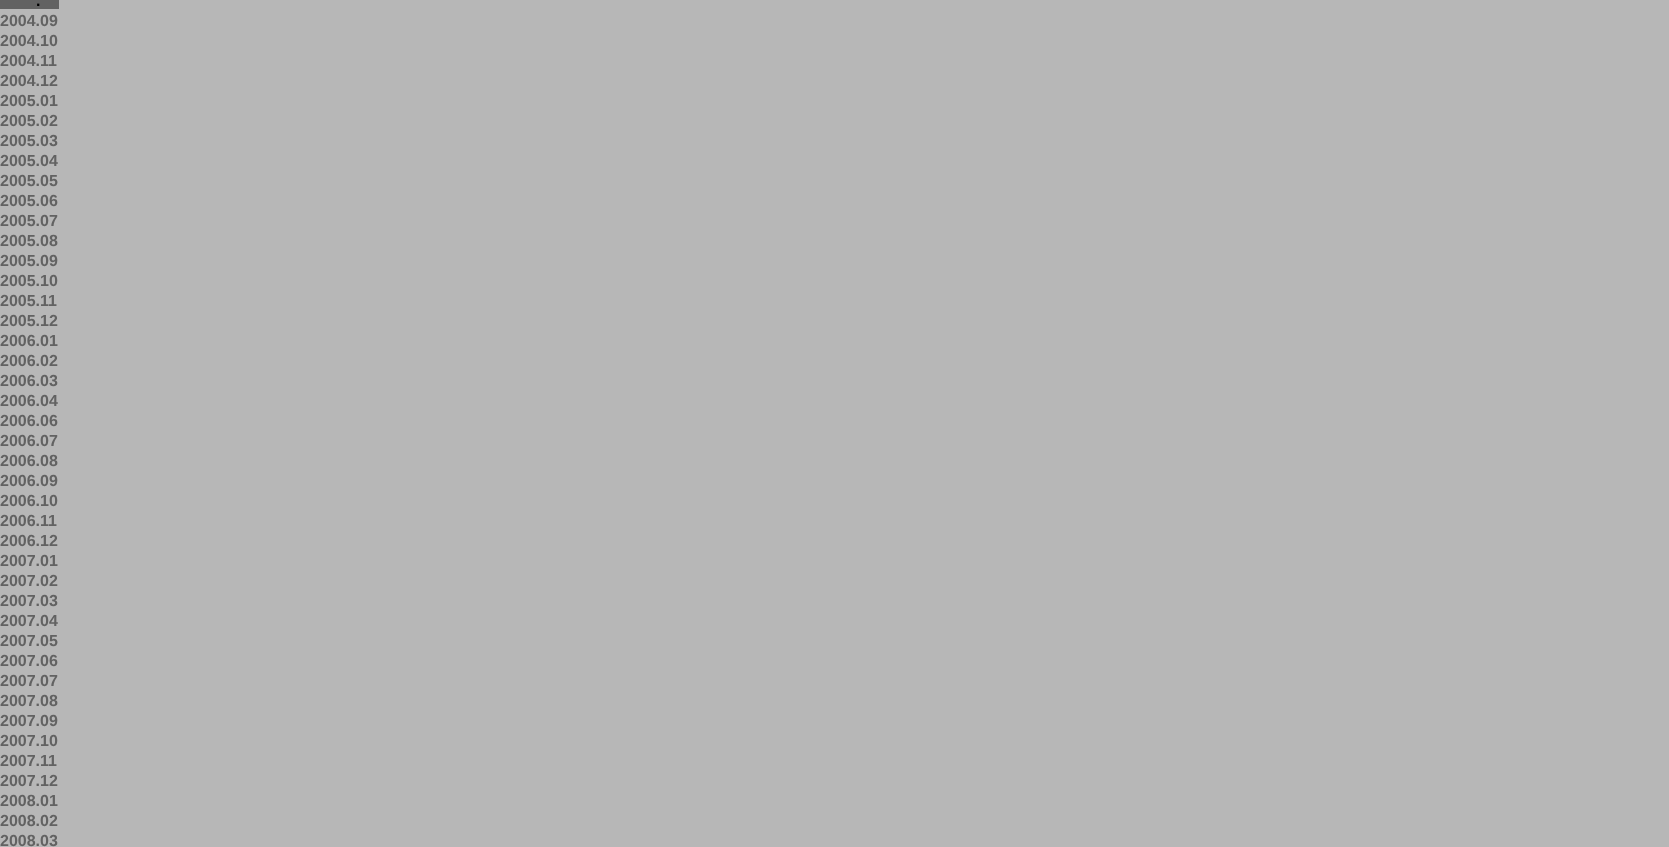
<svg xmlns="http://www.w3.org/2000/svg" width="1669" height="847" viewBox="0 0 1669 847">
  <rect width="100%" height="100%" fill="#b7b7b7"/>
  <path d="M0 0h59v9H0z" fill="#626262"/>
  <text x="36" y="6" font-family="Liberation Sans" font-size="16" font-weight="bold" fill="#000">.</text>
  <g font-family="Liberation Sans" font-size="16" font-weight="bold" fill="#626262">
    <text x="0" y="26">2004.09</text>
    <text x="0" y="46">2004.10</text>
    <text x="0" y="66">2004.11</text>
    <text x="0" y="86">2004.12</text>
    <text x="0" y="106">2005.01</text>
    <text x="0" y="126">2005.02</text>
    <text x="0" y="146">2005.03</text>
    <text x="0" y="166">2005.04</text>
    <text x="0" y="186">2005.05</text>
    <text x="0" y="206">2005.06</text>
    <text x="0" y="226">2005.07</text>
    <text x="0" y="246">2005.08</text>
    <text x="0" y="266">2005.09</text>
    <text x="0" y="286">2005.10</text>
    <text x="0" y="306">2005.11</text>
    <text x="0" y="326">2005.12</text>
    <text x="0" y="346">2006.01</text>
    <text x="0" y="366">2006.02</text>
    <text x="0" y="386">2006.03</text>
    <text x="0" y="406">2006.04</text>
    <text x="0" y="426">2006.06</text>
    <text x="0" y="446">2006.07</text>
    <text x="0" y="466">2006.08</text>
    <text x="0" y="486">2006.09</text>
    <text x="0" y="506">2006.10</text>
    <text x="0" y="526">2006.11</text>
    <text x="0" y="546">2006.12</text>
    <text x="0" y="566">2007.01</text>
    <text x="0" y="586">2007.02</text>
    <text x="0" y="606">2007.03</text>
    <text x="0" y="626">2007.04</text>
    <text x="0" y="646">2007.05</text>
    <text x="0" y="666">2007.06</text>
    <text x="0" y="686">2007.07</text>
    <text x="0" y="706">2007.08</text>
    <text x="0" y="726">2007.09</text>
    <text x="0" y="746">2007.10</text>
    <text x="0" y="766">2007.11</text>
    <text x="0" y="786">2007.12</text>
    <text x="0" y="806">2008.01</text>
    <text x="0" y="826">2008.02</text>
    <text x="0" y="846">2008.03</text>
  </g>
</svg>
